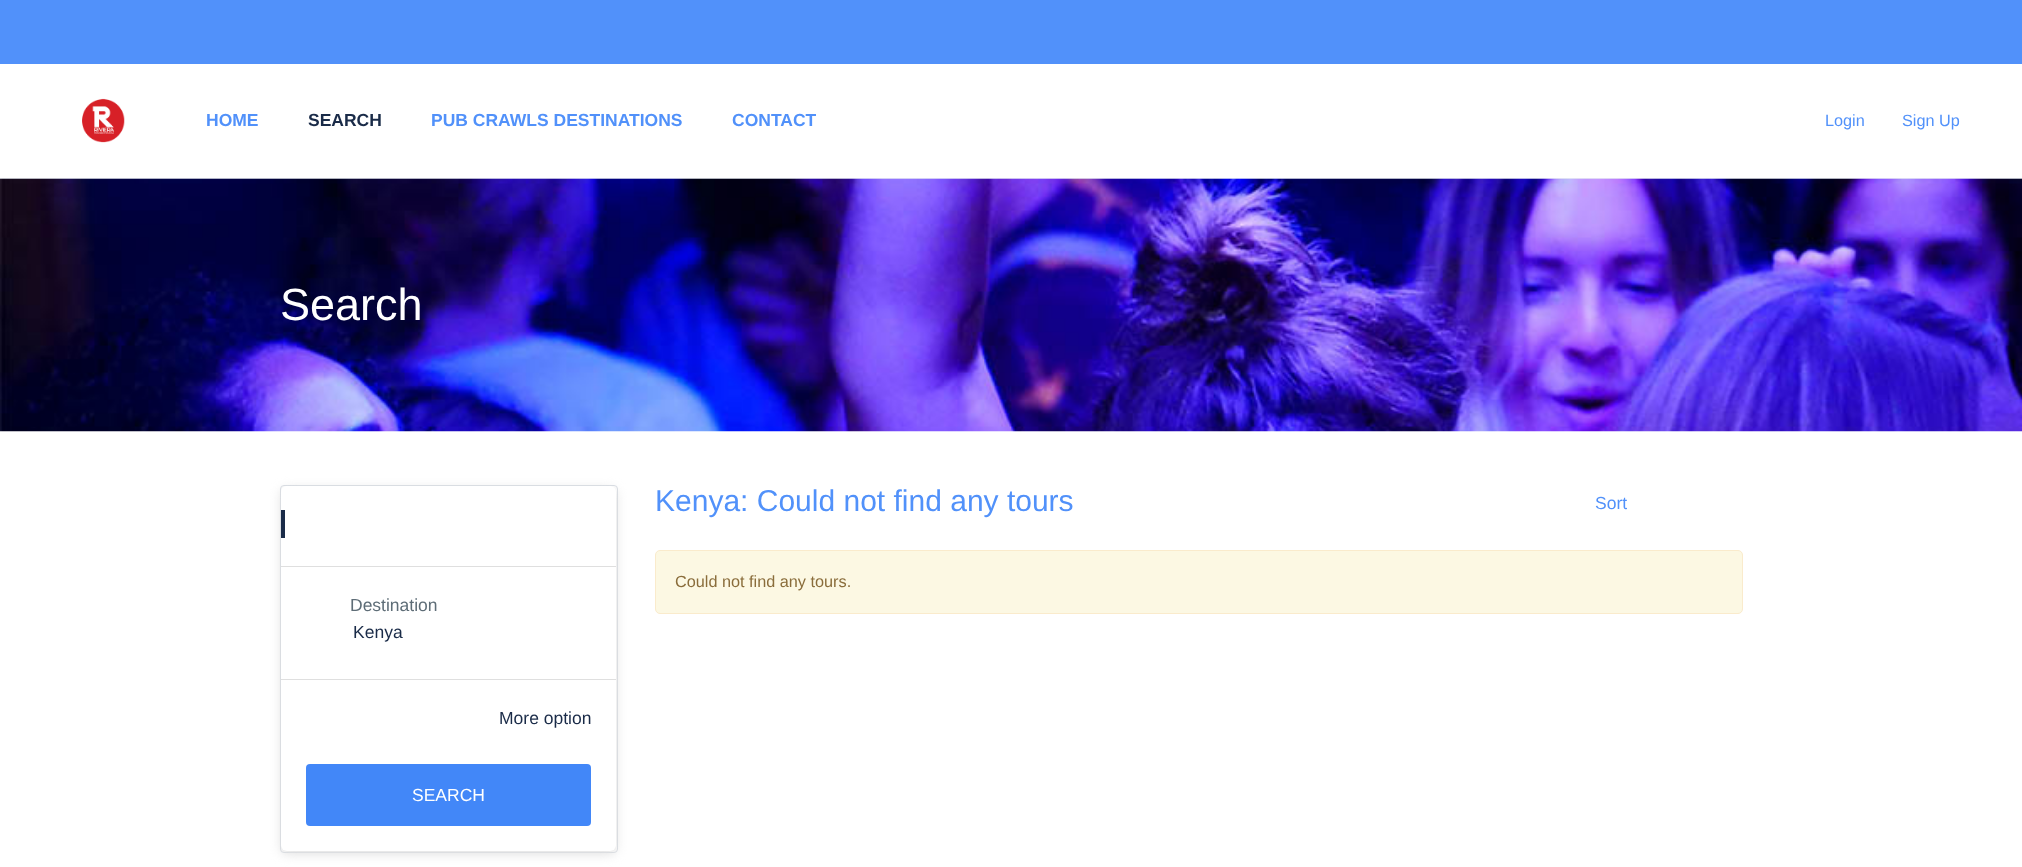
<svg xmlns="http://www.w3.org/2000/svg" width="2022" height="867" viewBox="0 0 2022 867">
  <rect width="100%" height="100%" fill="#fff"/>
  <path d="M0 0h2022v64H0z" fill="#5191fa"/>
  <path d="M0 178h2022v1H0z" fill="#eaeef3"/>
  <image x="82" y="98" width="43" height="45" href="img/1.png"/>
  <image x="0" y="178" width="2022" height="254" href="img/2.png"/>
  <rect x="655.5" y="550.5" width="1087" height="63" rx="4.5" fill="#fcf8e3" stroke="#faebcc"/>
  <rect x="280.5" y="485.5" width="337" height="367" rx="3.5" fill="none" stroke="#d7dce3"/>
  <rect x="281" y="489" width="335" height="365" rx="6" fill="#dfdfdf" filter="blur(5.5px)"/>
  <rect x="281" y="486" width="335" height="365" rx="6" fill="#fff"/>
  <path d="M281 566h335v1H281z" fill="#dfdfdf"/>
  <path d="M281 510h4v28H281z" fill="#1a2b48"/>
  <path d="M281 679h335v1H281z" fill="#dfdfdf"/>
  <rect x="306" y="764" width="285" height="62" rx="4" fill="#4287f8"/>
  <text x="206" y="126" font-family="Liberation Sans" font-size="17.5" font-weight="bold" fill="#5191fa">HOME</text>
  <text x="308" y="126" font-family="Liberation Sans" font-size="17.5" font-weight="bold" fill="#1a2b48">SEARCH</text>
  <g font-family="Liberation Sans" font-size="17.5" font-weight="bold" fill="#5191fa">
    <text x="431" y="126">PUB CRAWLS DESTINATIONS</text>
    <text x="732" y="126">CONTACT</text>
  </g>
  <g font-family="Liberation Sans" font-size="16.25" fill="#5191fa">
    <text x="1825" y="126">Login</text>
    <text x="1902" y="126">Sign Up</text>
  </g>
  <text x="280" y="320" font-family="Liberation Sans" font-size="45" fill="#fff">Search</text>
  <text x="655" y="511" font-family="Liberation Sans" font-size="30" fill="#5191fa">Kenya: Could not find any tours</text>
  <text x="1595" y="509" font-family="Liberation Sans" font-size="17.5" fill="#5191fa">Sort</text>
  <text x="675" y="587" font-family="Liberation Sans" font-size="16.25" fill="#8a6d3b">Could not find any tours.</text>
  <text x="350" y="611" font-family="Liberation Sans" font-size="17.5" fill="#5e6d77">Destination</text>
  <g font-family="Liberation Sans" font-size="17.5" fill="#1a2b48">
    <text x="353" y="638">Kenya</text>
    <text x="499" y="724">More option</text>
  </g>
  <text x="412" y="801" font-family="Liberation Sans" font-size="17.5" fill="#fff">SEARCH</text>
</svg>
